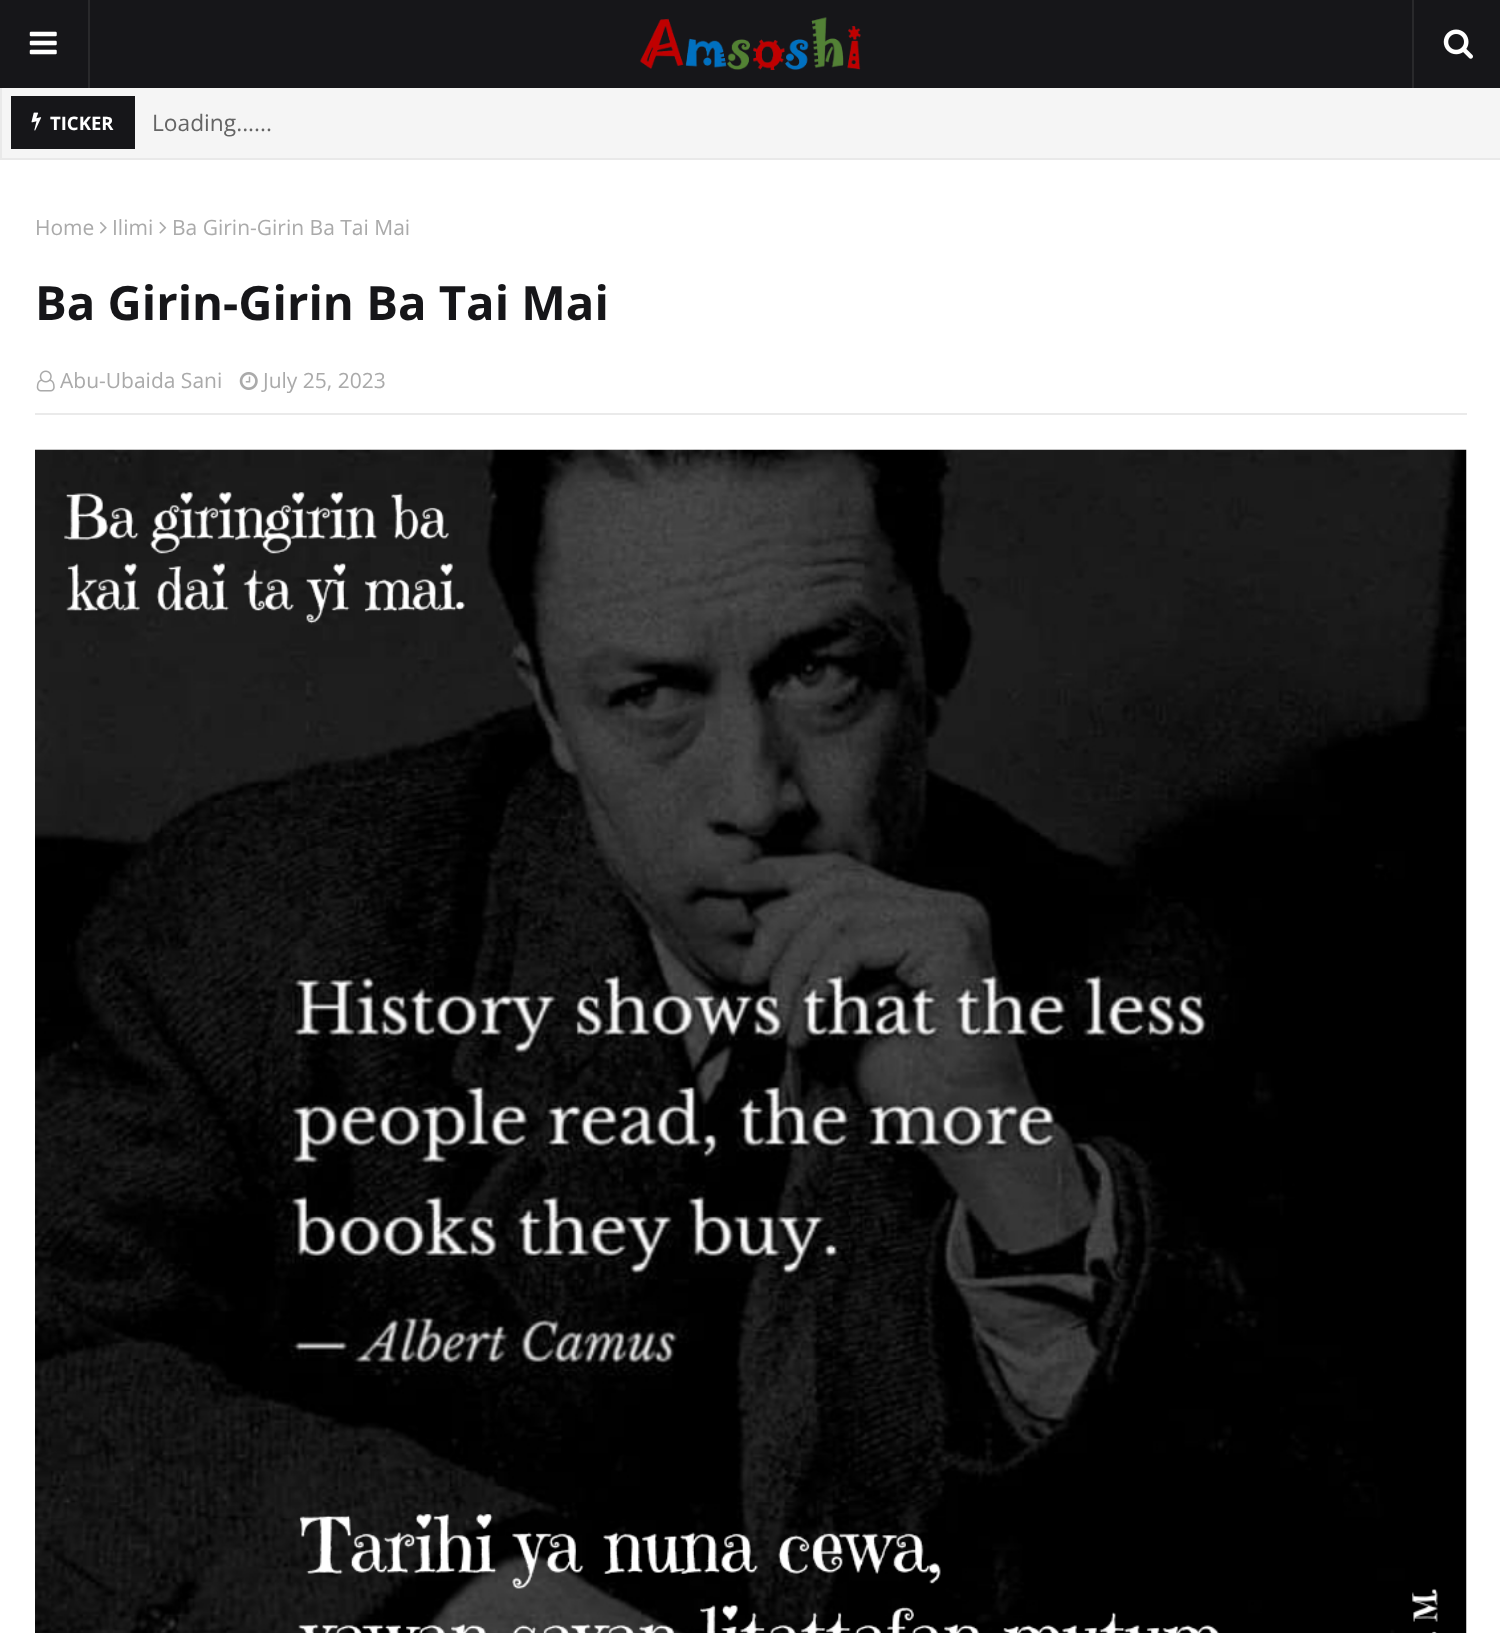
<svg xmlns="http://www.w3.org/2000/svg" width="1500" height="1633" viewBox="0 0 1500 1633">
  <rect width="100%" height="100%" fill="#fff"/>
  <path d="M0 0h1500v88H0z" fill="#161619"/>
  <path d="M88 0h2v88H88z" fill="#29292b"/>
  <image x="29" y="31" width="28" height="24" href="img/1.png"/>
  <image x="640" y="17" width="221" height="53" href="img/2.png"/>
  <path d="M1412 0h2v88H1412z" fill="#29292b"/>
  <image x="1443" y="29" width="30" height="30" href="img/3.png"/>
  <path d="M2 88h1498v70H2z" fill="#f5f5f5"/>
  <path d="M0 158h1500v2H0z" fill="#e9e9e9"/>
  <path d="M0 88h2v71H0z" fill="#e9e9e9"/>
  <path d="M11 96h124v53H11z" fill="#161619"/>
  <image x="31" y="112" width="11" height="19" href="img/4.png"/>
  <image x="100" y="222" width="7" height="12" href="img/5.png"/>
  <image x="159" y="222" width="8" height="12" href="img/6.png"/>
  <path d="M35 413h1432v2H35z" fill="#eaeaea"/>
  <image x="36" y="370" width="19" height="22" href="img/7.png"/>
  <image x="239" y="372" width="19" height="18" href="img/8.png"/>
  <image x="35" y="449" width="1432" height="1184" href="img/9.png"/>
  <text x="50" y="130" font-family="Open Sans" font-size="18.5" font-weight="bold" fill="#fff">TICKER</text>
  <text x="152" y="131" font-family="Open Sans" font-size="22.75" fill="#656565">Loading......</text>
  <g font-family="Open Sans" font-size="21" fill="#aaa">
    <text x="35" y="235">Home</text>
    <text x="112" y="235">Ilimi</text>
    <text x="172" y="235">Ba Girin-Girin Ba Tai Mai</text>
  </g>
  <text x="35" y="320" font-family="Open Sans" font-size="47.25" font-weight="bold" fill="#161619">Ba Girin-Girin Ba Tai Mai</text>
  <g font-family="Open Sans" font-size="21" fill="#aaa">
    <text x="60" y="388">Abu-Ubaida Sani</text>
    <text x="263" y="388">July 25, 2023</text>
  </g>
</svg>
